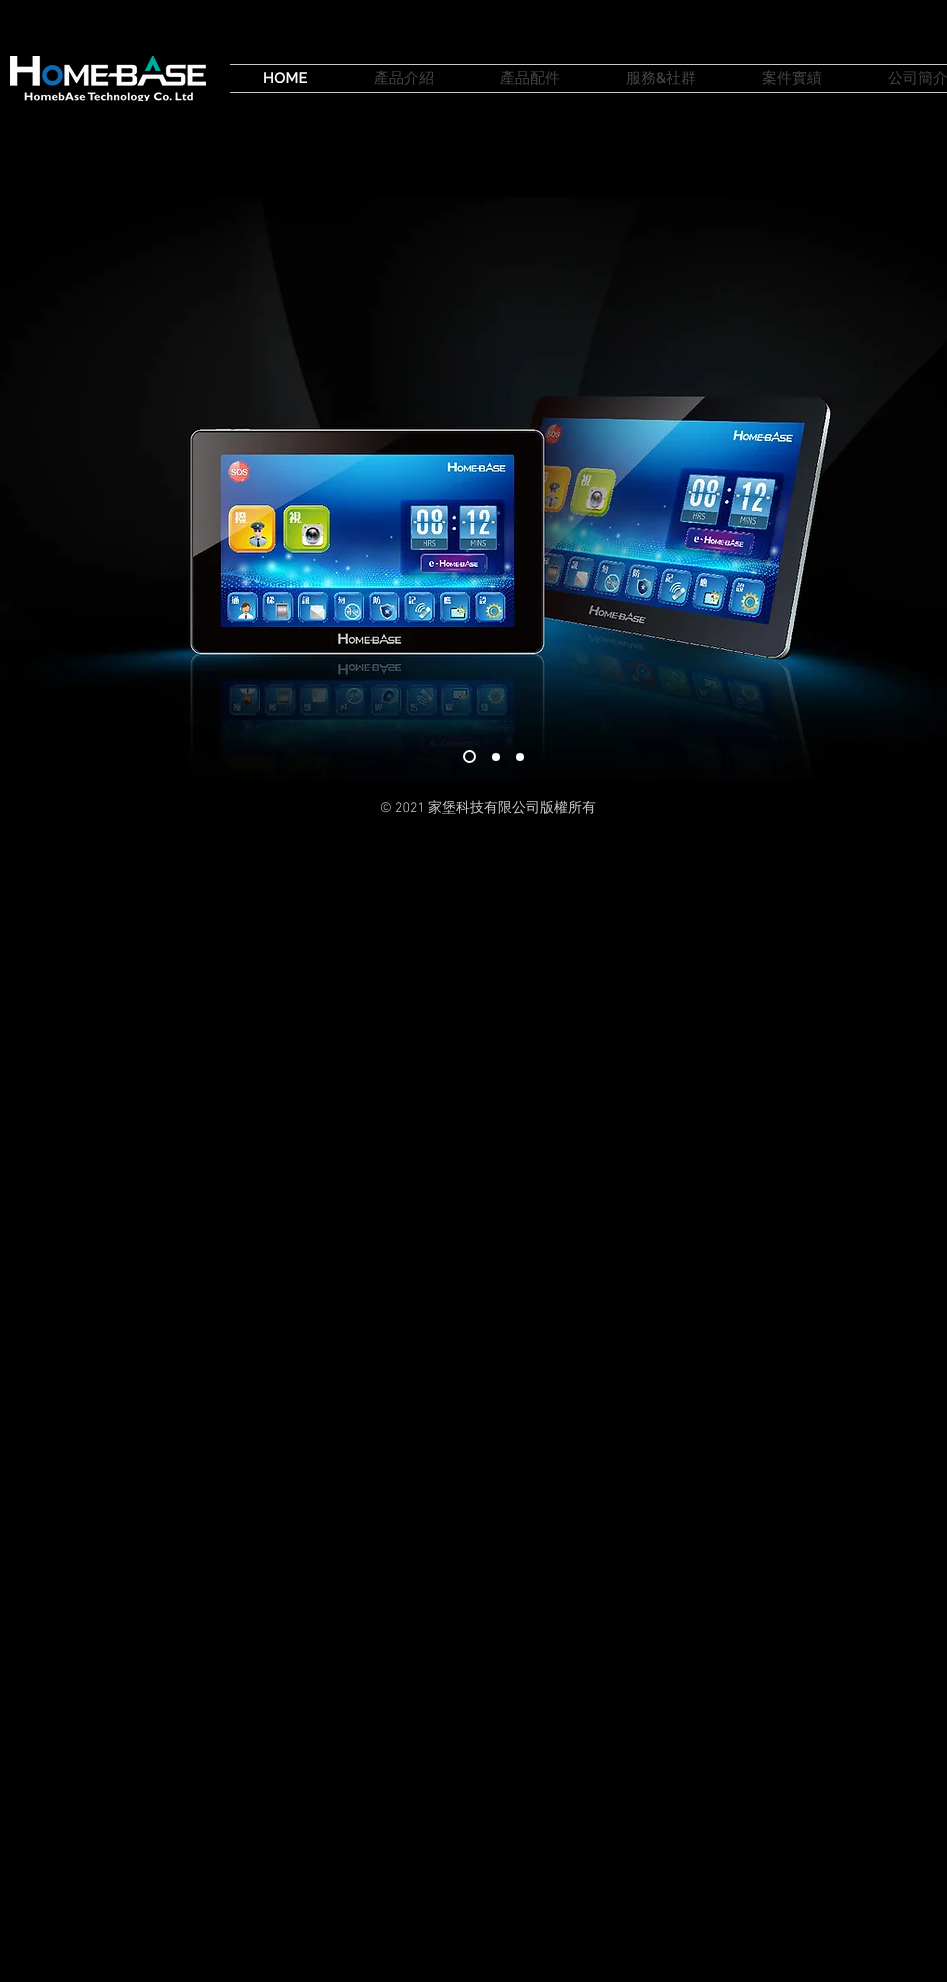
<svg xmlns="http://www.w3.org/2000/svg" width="947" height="1982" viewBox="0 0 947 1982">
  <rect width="100%" height="100%" fill="#000"/>
  <image x="10" y="56" width="196" height="45" href="img/1.png"/>
  <path d="M230 64h717v1H230z" fill="#cacaca"/>
  <path d="M230 92h717v1H230z" fill="#cacaca"/>
  <image x="0" y="197" width="947" height="584" href="img/2.png"/>
  <circle cx="469.5" cy="756.5" r="5.5" fill="none" stroke="#fff" stroke-width="2"/>
  <circle cx="496" cy="757" r="4" fill="#fff"/>
  <circle cx="520" cy="757" r="4" fill="#fff"/>
  <text x="263" y="83" font-family="Raleway" font-size="15" font-weight="600" fill="#fff">HOME</text>
  <g font-family="WenQuanYi Zen Hei" font-size="15" font-weight="500" fill="#454545">
    <text x="374" y="83">產品介紹</text>
    <text x="500" y="83">產品配件</text>
    <text x="626" y="83">服務</text>
  </g>
  <text x="656" y="83" font-family="Raleway" font-size="15" font-weight="600" fill="#454545">&amp;</text>
  <g font-family="WenQuanYi Zen Hei" font-size="15" font-weight="500" fill="#454545">
    <text x="666" y="83">社群</text>
    <text x="762" y="83">案件實績</text>
    <text x="888" y="83">公司簡介</text>
  </g>
  <text x="380" y="812" font-family="'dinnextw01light'" font-size="14" font-weight="300" fill="#c7c7c7">© 2021</text>
  <text x="428" y="812" font-family="WenQuanYi Zen Hei" font-size="14" font-weight="500" fill="#c7c7c7">家堡科技有限公司版權所有</text>
</svg>
